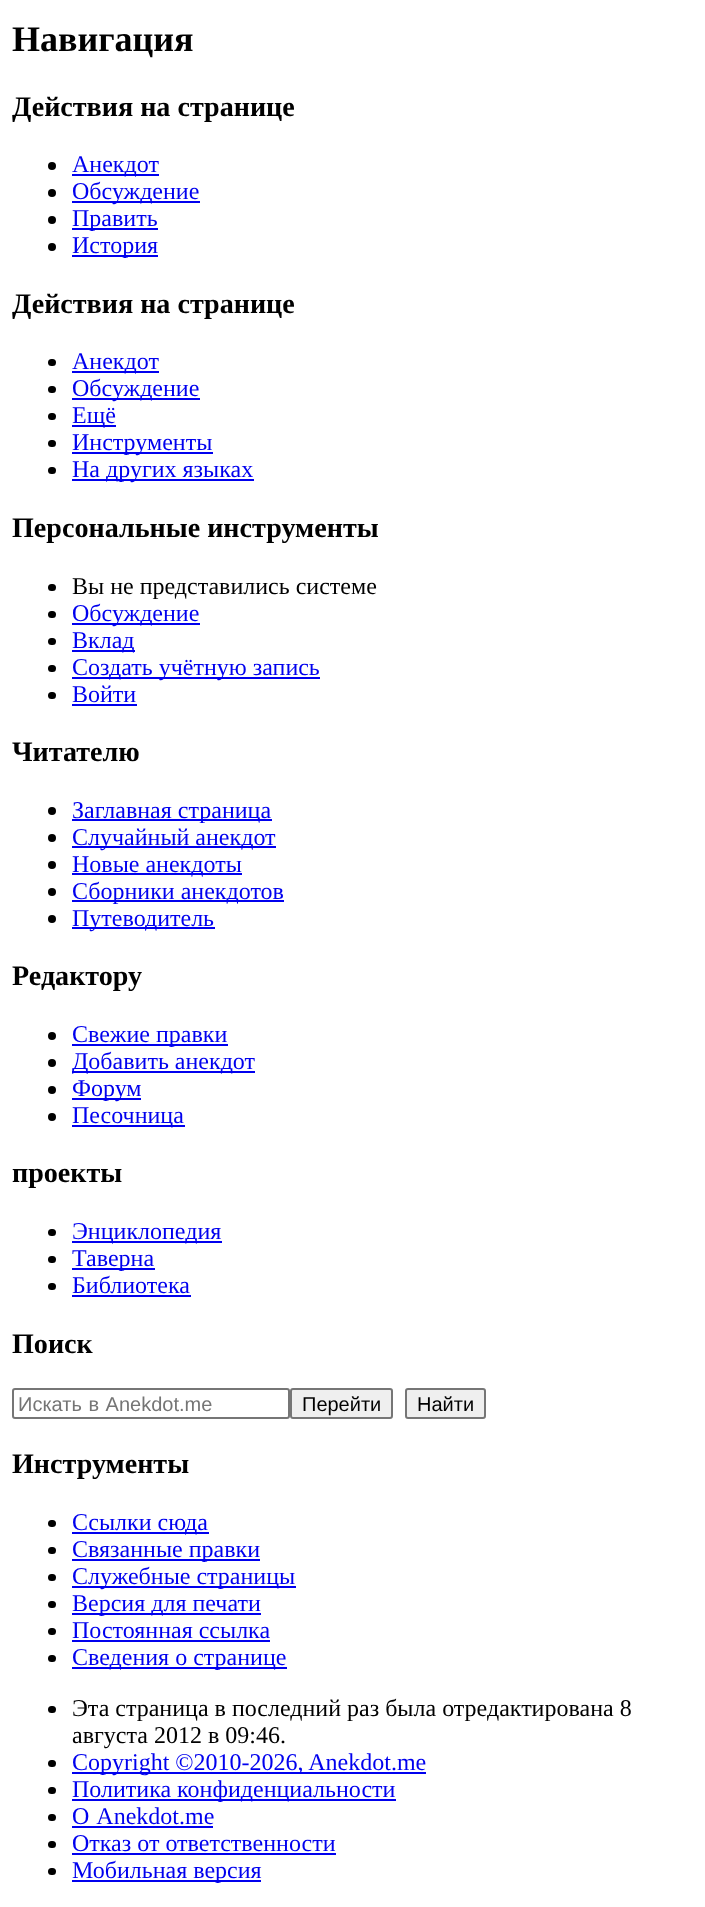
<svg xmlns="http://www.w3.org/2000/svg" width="705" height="1907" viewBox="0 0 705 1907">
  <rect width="100%" height="100%" fill="#fff"/>
  <circle cx="52" cy="166" r="4" fill="#000"/>
  <path d="M72 174h87v2H72z" fill="#00e"/>
  <circle cx="52" cy="193" r="4" fill="#000"/>
  <path d="M72 201h128v2H72z" fill="#00e"/>
  <circle cx="52" cy="220" r="4" fill="#000"/>
  <path d="M72 228h86v2H72z" fill="#00e"/>
  <circle cx="52" cy="247" r="4" fill="#000"/>
  <path d="M72 255h86v2H72z" fill="#00e"/>
  <rect x="48" y="359" width="8" height="7" rx="3.5" fill="#000"/>
  <path d="M72 371h87v2H72z" fill="#00e"/>
  <rect x="48" y="386" width="8" height="7" rx="3.5" fill="#000"/>
  <path d="M72 398h128v2H72z" fill="#00e"/>
  <rect x="48" y="413" width="8" height="7" rx="3.5" fill="#000"/>
  <path d="M72 425h44v2H72z" fill="#00e"/>
  <rect x="48" y="440" width="8" height="7" rx="3.5" fill="#000"/>
  <path d="M72 452h141v2H72z" fill="#00e"/>
  <rect x="48" y="467" width="8" height="7" rx="3.5" fill="#000"/>
  <path d="M72 479h182v2H72z" fill="#00e"/>
  <rect x="48" y="584" width="8" height="7" rx="3.5" fill="#000"/>
  <rect x="48" y="611" width="8" height="7" rx="3.5" fill="#000"/>
  <path d="M72 623h128v2H72z" fill="#00e"/>
  <rect x="48" y="638" width="8" height="7" rx="3.5" fill="#000"/>
  <path d="M72 650h63v2H72z" fill="#00e"/>
  <rect x="48" y="665" width="8" height="7" rx="3.5" fill="#000"/>
  <path d="M72 677h248v2H72z" fill="#00e"/>
  <rect x="48" y="692" width="8" height="7" rx="3.5" fill="#000"/>
  <path d="M72 704h65v2H72z" fill="#00e"/>
  <circle cx="52" cy="811" r="4" fill="#000"/>
  <path d="M72 819h200v2H72z" fill="#00e"/>
  <circle cx="52" cy="838" r="4" fill="#000"/>
  <path d="M72 846h204v2H72z" fill="#00e"/>
  <circle cx="52" cy="865" r="4" fill="#000"/>
  <path d="M72 873h170v2H72z" fill="#00e"/>
  <circle cx="52" cy="892" r="4" fill="#000"/>
  <path d="M72 900h212v2H72z" fill="#00e"/>
  <circle cx="52" cy="919" r="4" fill="#000"/>
  <path d="M72 927h143v2H72z" fill="#00e"/>
  <circle cx="52" cy="1036" r="4" fill="#000"/>
  <path d="M72 1044h156v2H72z" fill="#00e"/>
  <circle cx="52" cy="1063" r="4" fill="#000"/>
  <path d="M72 1071h183v2H72z" fill="#00e"/>
  <circle cx="52" cy="1090" r="4" fill="#000"/>
  <path d="M72 1098h69v2H72z" fill="#00e"/>
  <circle cx="52" cy="1117" r="4" fill="#000"/>
  <path d="M72 1125h113v2H72z" fill="#00e"/>
  <rect x="48" y="1229" width="8" height="7" rx="3.5" fill="#000"/>
  <path d="M72 1241h150v2H72z" fill="#00e"/>
  <rect x="48" y="1256" width="8" height="7" rx="3.5" fill="#000"/>
  <path d="M72 1268h83v2H72z" fill="#00e"/>
  <rect x="48" y="1283" width="8" height="7" rx="3.5" fill="#000"/>
  <path d="M72 1295h119v2H72z" fill="#00e"/>
  <rect x="13" y="1389" width="276" height="29" rx="2" fill="none" stroke="#767676" stroke-width="2"/>
  <rect x="291" y="1389" width="101" height="29" rx="2" fill="#efefef" stroke="#767676" stroke-width="2"/>
  <rect x="406" y="1389" width="79" height="29" rx="2" fill="#efefef" stroke="#767676" stroke-width="2"/>
  <rect x="48" y="1520" width="8" height="7" rx="3.5" fill="#000"/>
  <path d="M72 1532h137v2H72z" fill="#00e"/>
  <rect x="48" y="1547" width="8" height="7" rx="3.5" fill="#000"/>
  <path d="M72 1559h188v2H72z" fill="#00e"/>
  <rect x="48" y="1574" width="8" height="7" rx="3.5" fill="#000"/>
  <path d="M72 1586h224v2H72z" fill="#00e"/>
  <rect x="48" y="1601" width="8" height="7" rx="3.5" fill="#000"/>
  <path d="M72 1613h189v2H72z" fill="#00e"/>
  <rect x="48" y="1628" width="8" height="7" rx="3.5" fill="#000"/>
  <path d="M72 1640h198v2H72z" fill="#00e"/>
  <rect x="48" y="1655" width="8" height="7" rx="3.5" fill="#000"/>
  <path d="M72 1667h215v2H72z" fill="#00e"/>
  <rect x="48" y="1706" width="8" height="7" rx="3.5" fill="#000"/>
  <rect x="48" y="1760" width="8" height="7" rx="3.5" fill="#000"/>
  <path d="M72 1772h354v2H72z" fill="#00e"/>
  <rect x="48" y="1787" width="8" height="7" rx="3.5" fill="#000"/>
  <path d="M72 1799h324v2H72z" fill="#00e"/>
  <rect x="48" y="1814" width="8" height="7" rx="3.5" fill="#000"/>
  <path d="M72 1826h141v2H72z" fill="#00e"/>
  <rect x="48" y="1841" width="8" height="7" rx="3.5" fill="#000"/>
  <path d="M72 1853h264v2H72z" fill="#00e"/>
  <rect x="48" y="1868" width="8" height="7" rx="3.5" fill="#000"/>
  <path d="M72 1880h189v2H72z" fill="#00e"/>
  <text x="12" y="51" font-family="Liberation Serif" font-size="36" font-weight="bold" fill="#000">Навигация</text>
  <text x="12" y="116" font-family="Liberation Serif" font-size="28.1" font-weight="bold" fill="#000">Действия на странице</text>
  <g font-family="Liberation Serif" font-size="24" fill="#00e">
    <text x="72" y="172">Анекдот</text>
    <text x="72" y="199">Обсуждение</text>
    <text x="72" y="226">Править</text>
    <text x="72" y="253">История</text>
  </g>
  <text x="12" y="313" font-family="Liberation Serif" font-size="28.1" font-weight="bold" fill="#000">Действия на странице</text>
  <g font-family="Liberation Serif" font-size="24" fill="#00e">
    <text x="72" y="369">Анекдот</text>
    <text x="72" y="396">Обсуждение</text>
    <text x="72" y="423">Ещё</text>
    <text x="72" y="450">Инструменты</text>
    <text x="72" y="477">На других языках</text>
  </g>
  <text x="12" y="537" font-family="Liberation Serif" font-size="28.1" font-weight="bold" fill="#000">Персональные инструменты</text>
  <text x="72" y="594" font-family="Liberation Serif" font-size="24" fill="#000">Вы не представились системе</text>
  <g font-family="Liberation Serif" font-size="24" fill="#00e">
    <text x="72" y="621">Обсуждение</text>
    <text x="72" y="648">Вклад</text>
    <text x="72" y="675">Создать учётную запись</text>
    <text x="72" y="702">Войти</text>
  </g>
  <text x="12" y="761" font-family="Liberation Serif" font-size="28.1" font-weight="bold" fill="#000">Читателю</text>
  <g font-family="Liberation Serif" font-size="24" fill="#00e">
    <text x="72" y="818">Заглавная страница</text>
    <text x="72" y="845">Случайный анекдот</text>
    <text x="72" y="872">Новые анекдоты</text>
    <text x="72" y="899">Сборники анекдотов</text>
    <text x="72" y="926">Путеводитель</text>
  </g>
  <text x="12" y="985" font-family="Liberation Serif" font-size="28.1" font-weight="bold" fill="#000">Редактору</text>
  <g font-family="Liberation Serif" font-size="24" fill="#00e">
    <text x="72" y="1042">Свежие правки</text>
    <text x="72" y="1069">Добавить анекдот</text>
    <text x="72" y="1096">Форум</text>
    <text x="72" y="1123">Песочница</text>
  </g>
  <text x="12" y="1182" font-family="Liberation Serif" font-size="28.1" font-weight="bold" fill="#000">проекты</text>
  <g font-family="Liberation Serif" font-size="24" fill="#00e">
    <text x="72" y="1239">Энциклопедия</text>
    <text x="72" y="1266">Таверна</text>
    <text x="72" y="1293">Библиотека</text>
  </g>
  <text x="12" y="1353" font-family="Liberation Serif" font-size="28.1" font-weight="bold" fill="#000">Поиск</text>
  <text x="18" y="1411" word-spacing="1" font-family="Liberation Sans" font-size="20" fill="#757575">Искать в Anekdot.me</text>
  <g font-family="Liberation Sans" font-size="20" fill="#000">
    <text x="302" y="1411">Перейти</text>
    <text x="417" y="1411">Найти</text>
  </g>
  <text x="12" y="1473" font-family="Liberation Serif" font-size="28.1" font-weight="bold" fill="#000">Инструменты</text>
  <g font-family="Liberation Serif" font-size="24" fill="#00e">
    <text x="72" y="1530">Ссылки сюда</text>
    <text x="72" y="1557">Связанные правки</text>
    <text x="72" y="1584">Служебные страницы</text>
    <text x="72" y="1611">Версия для печати</text>
    <text x="72" y="1638">Постоянная ссылка</text>
    <text x="72" y="1665">Сведения о странице</text>
  </g>
  <g font-family="Liberation Serif" font-size="24" fill="#000">
    <text x="72" y="1716">Эта страница в последний раз была отредактирована 8</text>
    <text x="72" y="1743">августа 2012 в 09:46.</text>
  </g>
  <g font-family="Liberation Serif" font-size="24" fill="#00e">
    <text x="72" y="1770">Copyright ©2010-2026, Anekdot.me</text>
    <text x="72" y="1797">Политика конфиденциальности</text>
    <text x="72" y="1824" word-spacing="1">О Anekdot.me</text>
    <text x="72" y="1851">Отказ от ответственности</text>
    <text x="72" y="1878">Мобильная версия</text>
  </g>
</svg>
